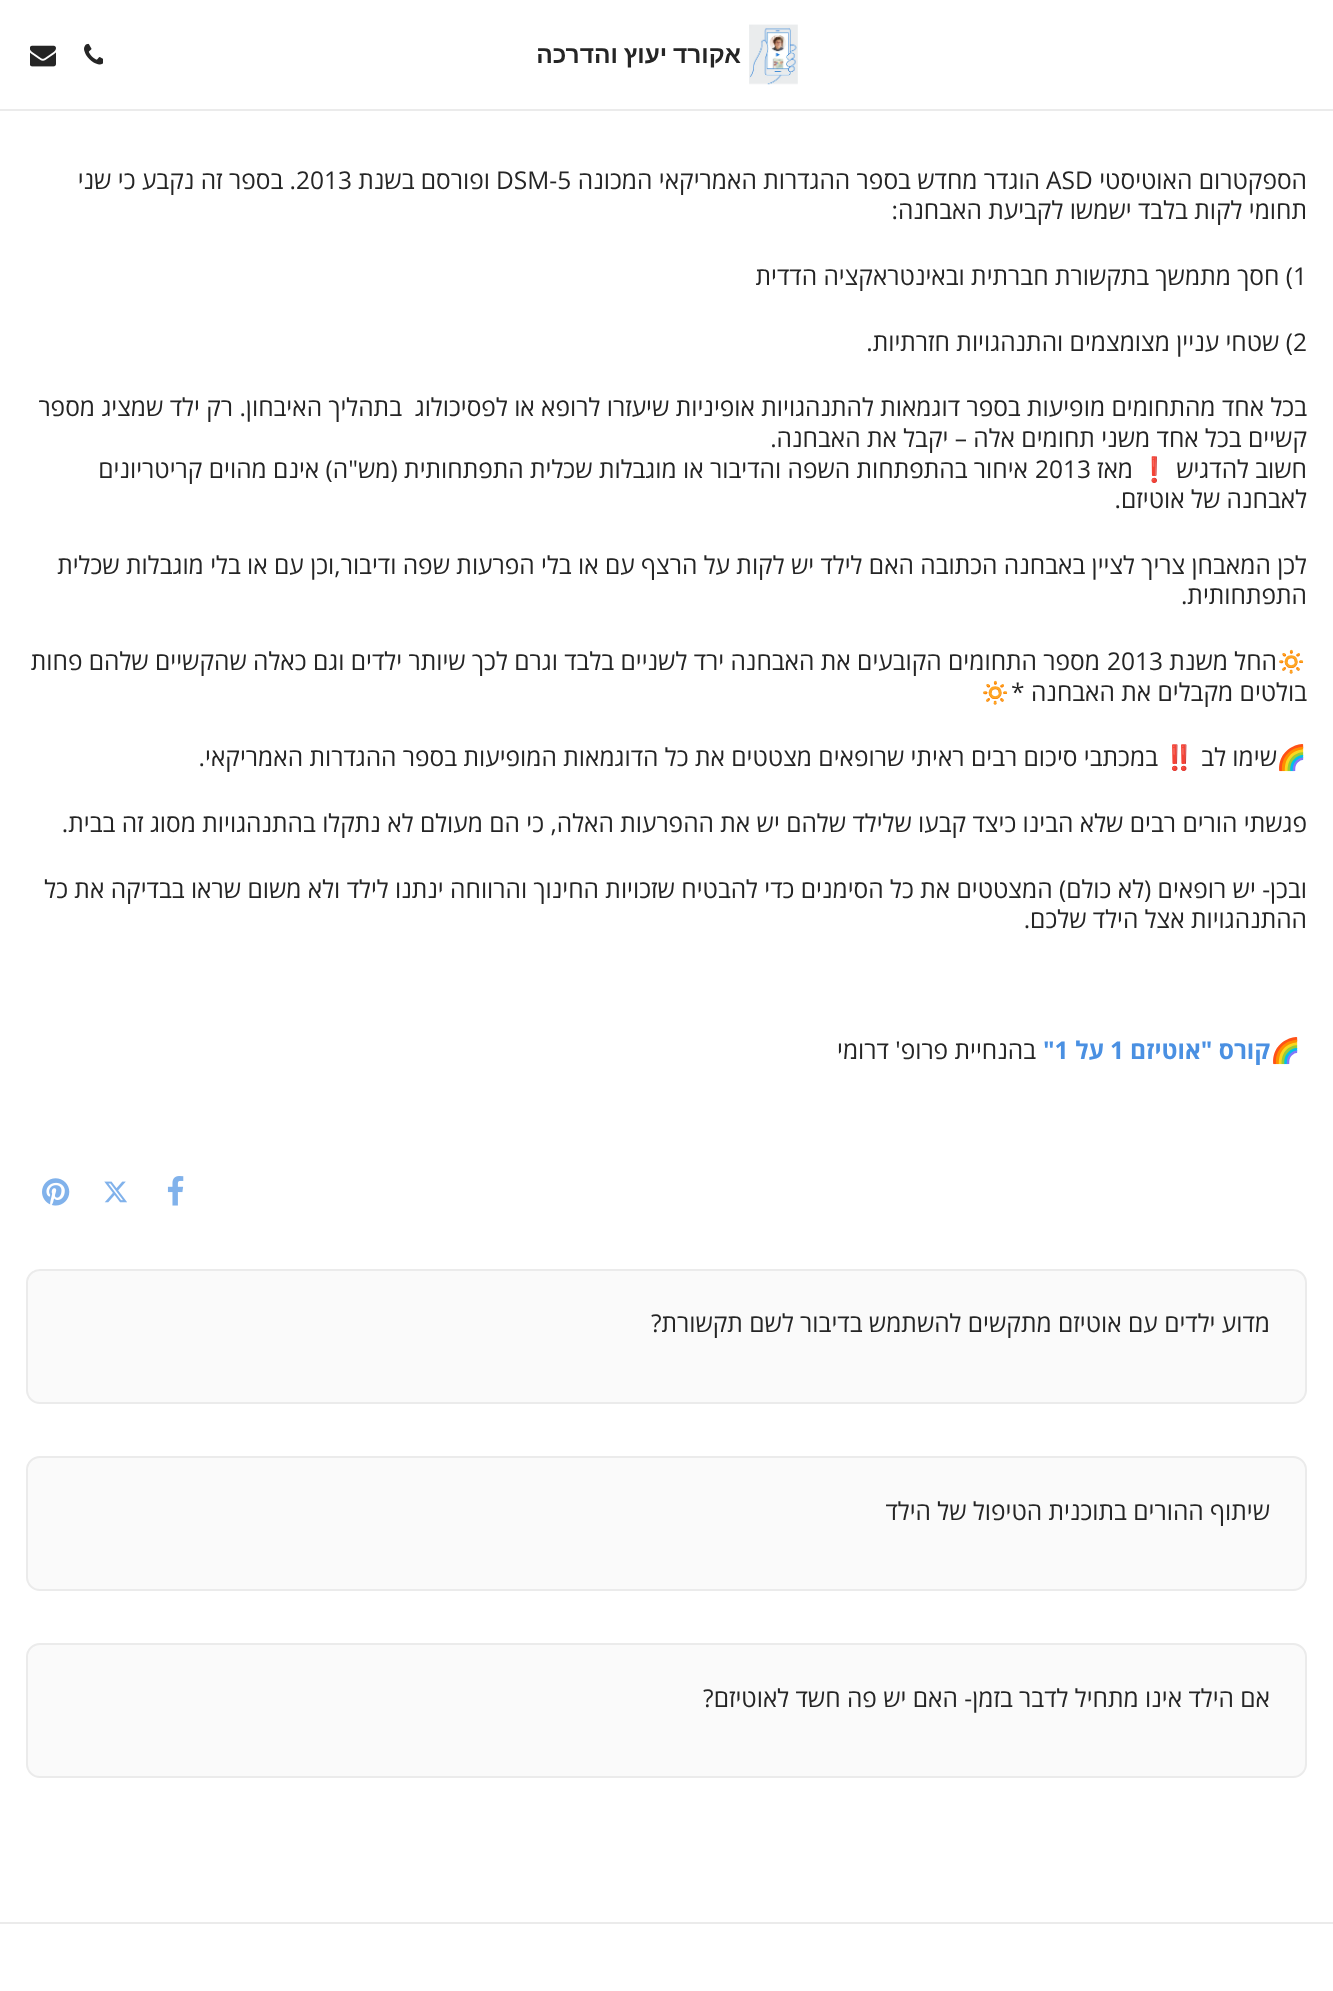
<svg xmlns="http://www.w3.org/2000/svg" width="1333" height="1991" viewBox="0 0 1333 1991">
  <rect width="100%" height="100%" fill="#fff"/>
  <path d="M0 109h1333v2H0z" fill="#ebebeb"/>
  <image x="749" y="24" width="49" height="61" href="img/1.png"/>
  <image x="84" y="43" width="19" height="22" href="img/2.png"/>
  <image x="30" y="45" width="26" height="22" href="img/3.png"/>
  <image x="167" y="1176" width="17" height="30" href="img/4.png"/>
  <image x="104" y="1181" width="23" height="22" href="img/5.png"/>
  <image x="42" y="1178" width="28" height="28" href="img/6.png"/>
  <rect x="27" y="1270" width="1279" height="133" rx="13" fill="#fafafa" stroke="#ebebeb" stroke-width="2"/>
  <rect x="27" y="1457" width="1279" height="133" rx="13" fill="#fafafa" stroke="#ebebeb" stroke-width="2"/>
  <rect x="27" y="1644" width="1279" height="133" rx="13" fill="#fafafa" stroke="#ebebeb" stroke-width="2"/>
  <path d="M0 1922h1333v2H0z" fill="#ebebeb"/>
  <text x="741" y="63" word-spacing="-1" font-family="Liberation Sans" font-size="24.5" font-weight="bold" direction="rtl" fill="#252525">אקורד יעוץ והדרכה</text>
  <text x="1307" y="189" font-family="Open Sans" font-size="24.5" direction="rtl" fill="#252525">הספקטרום האוטיסטי</text>
  <text x="1046" y="189" font-family="Open Sans" font-size="24.5" fill="#252525">ASD</text>
  <text x="1040" y="189" font-family="Open Sans" font-size="24.5" direction="rtl" fill="#252525">הוגדר מחדש בספר ההגדרות האמריקאי המכונה</text>
  <text x="496" y="189" font-family="Open Sans" font-size="24.5" fill="#252525">DSM-5</text>
  <text x="490" y="189" font-family="Open Sans" font-size="24.5" direction="rtl" fill="#252525">ופורסם בשנת</text>
  <text x="296" y="189" font-family="Open Sans" font-size="24.5" fill="#252525">2013</text>
  <g font-family="Open Sans" font-size="24.5" direction="rtl" fill="#252525">
    <text x="296" y="189">. בספר זה נקבע כי שני</text>
    <text x="1307" y="219">תחומי לקות בלבד ישמשו לקביעת האבחנה:</text>
  </g>
  <text x="1293" y="285" font-family="Open Sans" font-size="24.5" fill="#252525">1</text>
  <text x="1293" y="285" font-family="Open Sans" font-size="24.5" direction="rtl" fill="#252525">) חסך מתמשך בתקשורת חברתית ובאינטראקציה הדדית</text>
  <text x="1293" y="351" font-family="Open Sans" font-size="24.5" fill="#252525">2</text>
  <g font-family="Open Sans" font-size="24.5" direction="rtl" fill="#252525">
    <text x="1293" y="351">) שטחי עניין מצומצמים והתנהגויות חזרתיות.</text>
    <text x="1307" y="416" xml:space="preserve">בכל אחד מהתחומים מופיעות בספר דוגמאות להתנהגויות אופיניות שיעזרו לרופא או לפסיכולוג  בתהליך האיבחון. רק ילד שמציג מספר</text>
    <text x="1307" y="447">קשיים בכל אחד משני תחומים אלה – יקבל את האבחנה.</text>
    <text x="1307" y="478">חשוב להדגיש</text>
  </g>
  <text x="1170" y="478" font-family="Noto Color Emoji" font-size="24.5" direction="rtl" fill="#252525">❗</text>
  <text x="1133" y="478" font-family="Open Sans" font-size="24.5" direction="rtl" fill="#252525">מאז</text>
  <text x="1035" y="478" font-family="Open Sans" font-size="24.5" fill="#252525">2013</text>
  <g font-family="Open Sans" font-size="24.5" direction="rtl" fill="#252525">
    <text x="1028" y="478">איחור בהתפתחות השפה והדיבור או מוגבלות שכלית התפתחותית (מש"ה) אינם מהוים קריטריונים</text>
    <text x="1307" y="508">לאבחנה של אוטיזם.</text>
    <text x="1307" y="574">לכן המאבחן צריך לציין באבחנה הכתובה האם לילד יש לקות על הרצף עם או בלי הפרעות שפה ודיבור,וכן עם או בלי מוגבלות שכלית</text>
    <text x="1307" y="604">התפתחותית.</text>
  </g>
  <text x="1307" y="670" font-family="Noto Color Emoji" font-size="24.5" direction="rtl" fill="#252525">🔅</text>
  <text x="1277" y="670" font-family="Open Sans" font-size="24.5" direction="rtl" fill="#252525">החל משנת</text>
  <text x="1107" y="670" font-family="Open Sans" font-size="24.5" fill="#252525">2013</text>
  <g font-family="Open Sans" font-size="24.5" direction="rtl" fill="#252525">
    <text x="1100" y="670">מספר התחומים הקובעים את האבחנה ירד לשניים בלבד וגרם לכך שיותר ילדים וגם כאלה שהקשיים שלהם פחות</text>
    <text x="1307" y="701">בולטים מקבלים את האבחנה *</text>
  </g>
  <g font-family="Noto Color Emoji" font-size="24.5" direction="rtl" fill="#252525">
    <text x="1011" y="701">🔅</text>
    <text x="1307" y="766">🌈</text>
  </g>
  <text x="1277" y="766" font-family="Open Sans" font-size="24.5" direction="rtl" fill="#252525">שימו לב</text>
  <text x="1195" y="766" font-family="Noto Color Emoji" font-size="24.5" direction="rtl" fill="#252525">‼️</text>
  <g font-family="Open Sans" font-size="24.5" direction="rtl" fill="#252525">
    <text x="1158" y="766">במכתבי סיכום רבים ראיתי שרופאים מצטטים את כל הדוגמאות המופיעות בספר ההגדרות האמריקאי.</text>
    <text x="1307" y="832">פגשתי הורים רבים שלא הבינו כיצד קבעו שלילד שלהם יש את ההפרעות האלה, כי הם מעולם לא נתקלו בהתנהגויות מסוג זה בבית.</text>
    <text x="1307" y="898">ובכן- יש רופאים (לא כולם) המצטטים את כל הסימנים כדי להבטיח שזכויות החינוך והרווחה ינתנו לילד ולא משום שראו בבדיקה את כל</text>
    <text x="1307" y="928">ההתנהגויות אצל הילד שלכם.</text>
  </g>
  <text x="1270" y="1059" font-family="Noto Color Emoji" font-size="24.5" fill="#252525">🌈</text>
  <text x="1270" y="1059" font-family="Open Sans" font-size="24.5" font-weight="bold" direction="rtl" fill="#4a90e2">קורס "אוטיזם</text>
  <text x="1110" y="1059" font-family="Open Sans" font-size="24.5" font-weight="bold" fill="#4a90e2">1</text>
  <text x="1104" y="1059" font-family="Open Sans" font-size="24.5" font-weight="bold" direction="rtl" fill="#4a90e2">על</text>
  <text x="1043" y="1059" font-family="Open Sans" font-size="24.5" font-weight="bold" fill="#4a90e2">"1</text>
  <g font-family="Open Sans" font-size="24.5" direction="rtl" fill="#252525">
    <text x="1036" y="1059">בהנחיית פרופ' דרומי</text>
    <text x="1270" y="1332">מדוע ילדים עם אוטיזם מתקשים להשתמש בדיבור לשם תקשורת?</text>
    <text x="1270" y="1520">שיתוף ההורים בתוכנית הטיפול של הילד</text>
    <text x="1270" y="1707">אם הילד אינו מתחיל לדבר בזמן- האם יש פה חשד לאוטיזם?</text>
  </g>
</svg>
